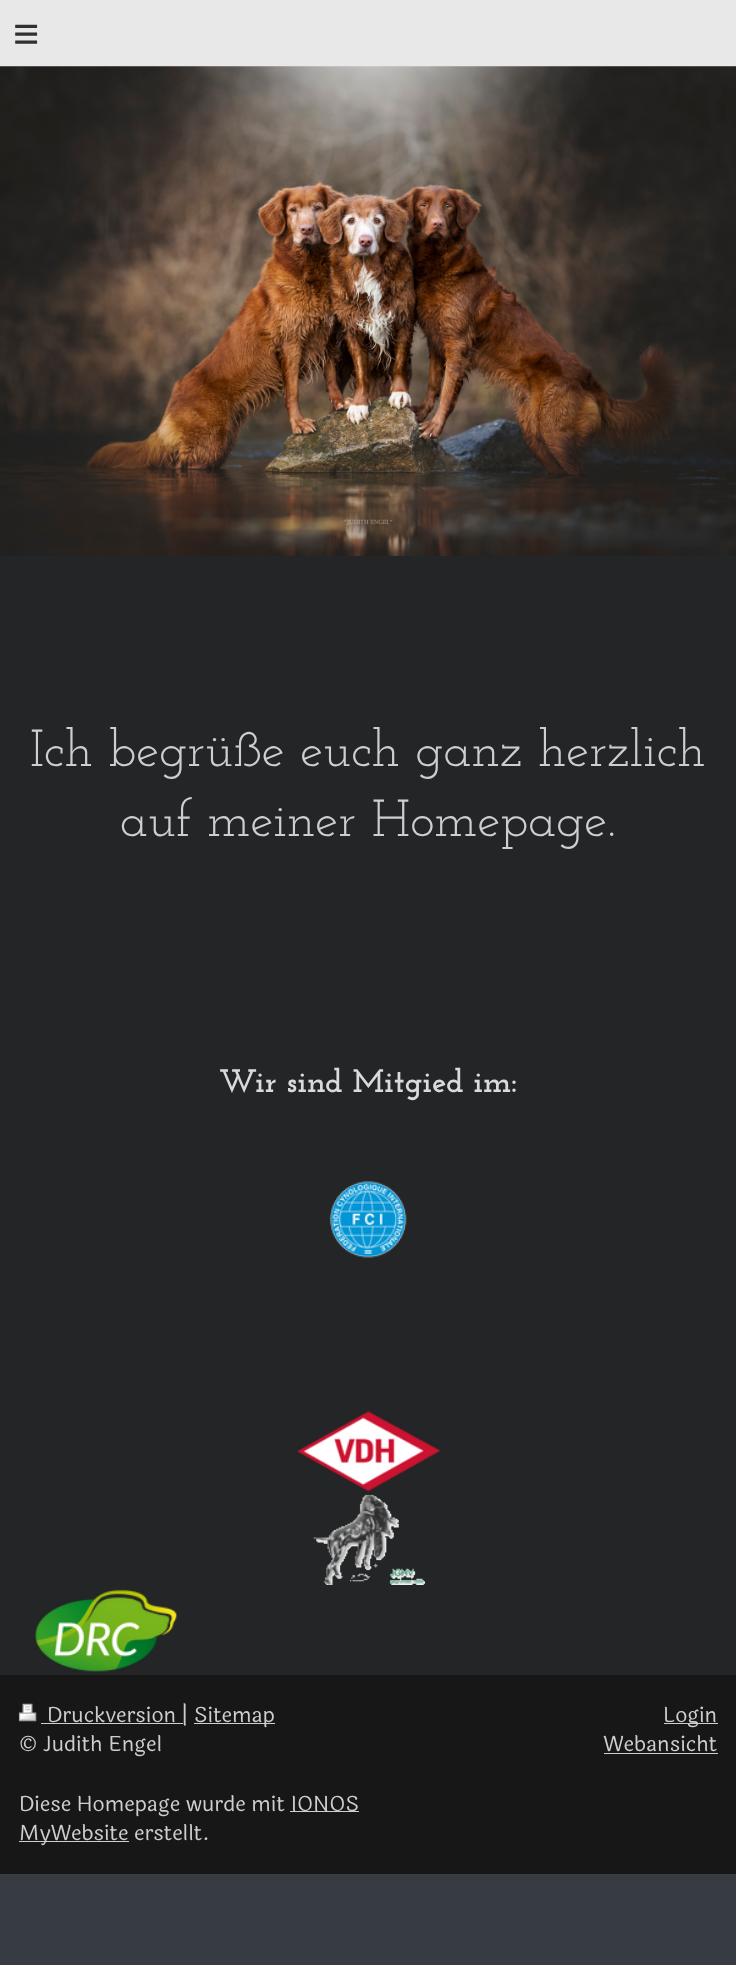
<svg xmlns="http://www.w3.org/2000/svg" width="736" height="1965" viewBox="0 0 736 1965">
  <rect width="100%" height="100%" fill="#373c42"/>
  <path d="M0 0h736v67H0z" fill="#e8e8e8"/>
  <image x="0" y="66" width="736" height="490" href="img/1.png"/>
  <path d="M0 556h736v1119H0z" fill="#232527"/>
  <image x="329" y="1181" width="78" height="77" href="img/2.png"/>
  <image x="297" y="1411" width="144" height="81" href="img/3.png"/>
  <image x="313" y="1494" width="112" height="91" href="img/4.png"/>
  <image x="35" y="1589" width="143" height="83" href="img/5.png"/>
  <path d="M0 1675h736v199H0z" fill="#171717"/>
  <image x="18" y="1703" width="19" height="19" href="img/6.png"/>
  <path d="M41 1723h142v1H41z" fill="#cfcfcf"/>
  <path d="M194 1723h81v1H194z" fill="#cfcfcf"/>
  <path d="M290 1811h69v1H290z" fill="#cfcfcf"/>
  <path d="M19 1841h110v1H19z" fill="#cfcfcf"/>
  <path d="M664 1723h54v1H664z" fill="#cfcfcf"/>
  <path d="M604 1753h114v1H604z" fill="#cfcfcf"/>
  <text x="13" y="49" font-family="Liberation Sans" font-size="45" letter-spacing="13" fill="#303030">≡</text>
  <g font-family="Josefin Slab" font-size="52" fill="#cdced0">
    <text x="30" y="766">Ich begrüße euch ganz herzlich</text>
    <text x="120" y="836">auf meiner Homepage.</text>
  </g>
  <text x="219" y="1092" font-family="Josefin Slab" font-size="32.5" font-weight="bold" fill="#d9dadb">Wir sind Mitgied im:</text>
  <g font-family="Laila" font-size="21.1" fill="#cdced0">
    <text x="47" y="1722">Druckversion |</text>
    <text x="194" y="1722">Sitemap</text>
    <text x="19" y="1751">© Judith Engel</text>
    <text x="19" y="1811">Diese Homepage wurde mit</text>
    <text x="291" y="1811">IONOS</text>
    <text x="19" y="1840">MyWebsite erstellt.</text>
    <text x="663" y="1722">Login</text>
    <text x="603" y="1751">Webansicht</text>
  </g>
</svg>
